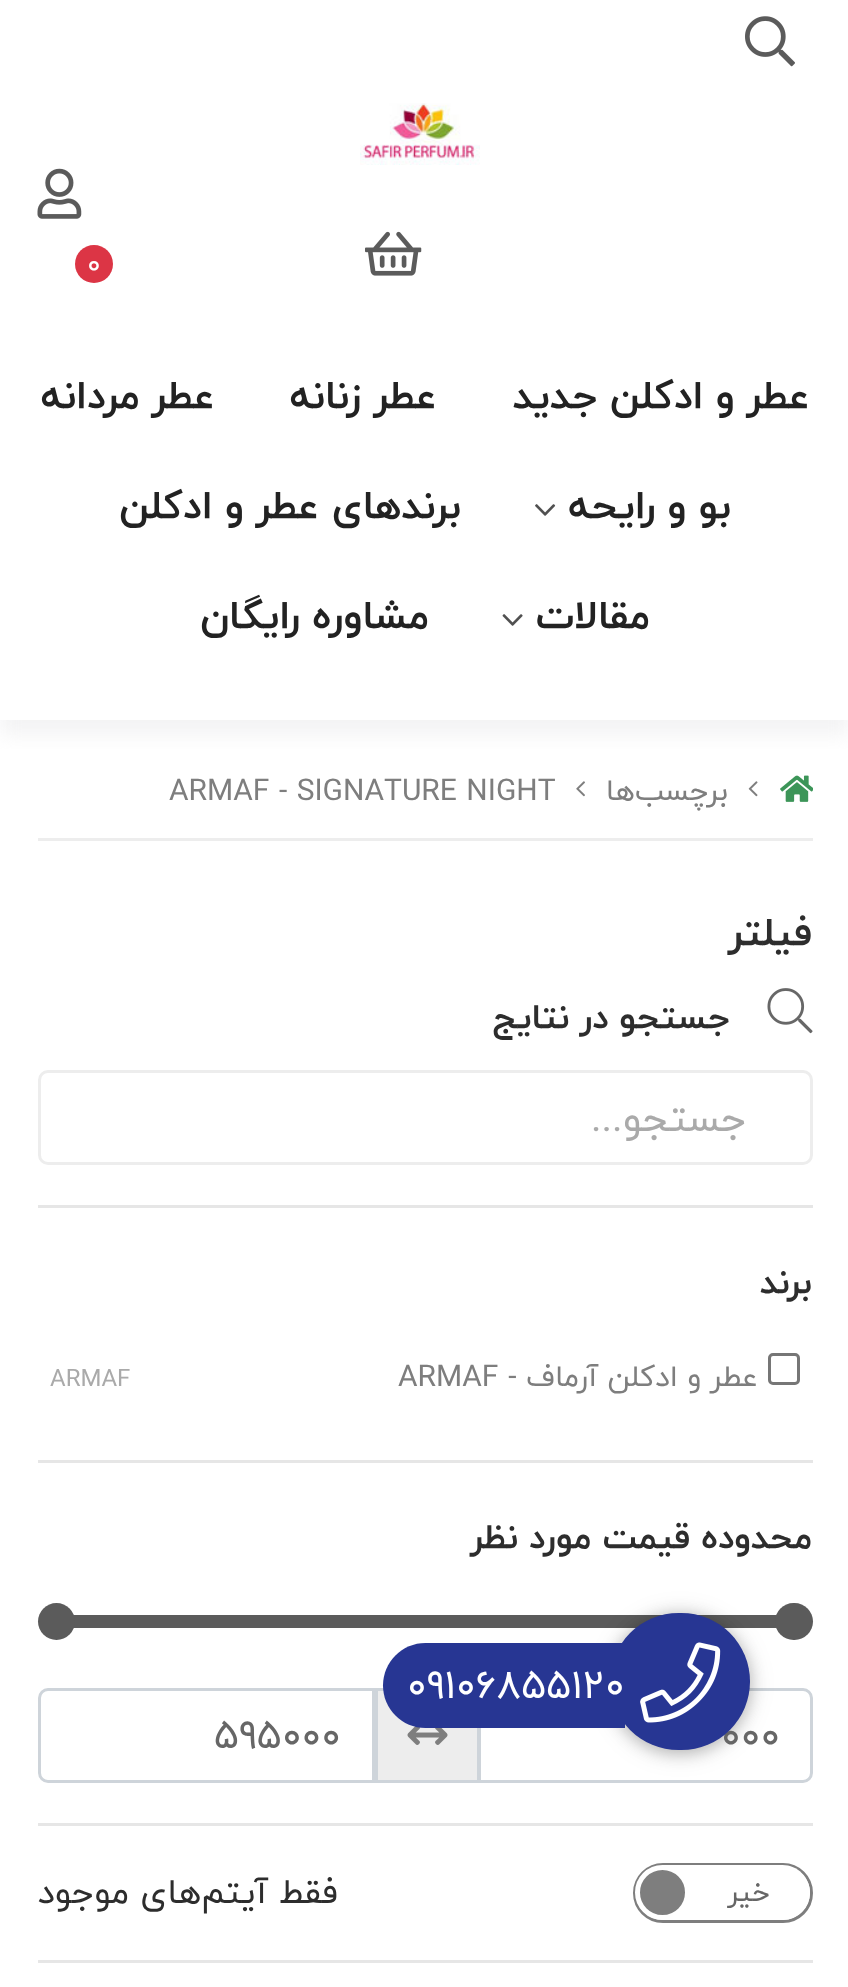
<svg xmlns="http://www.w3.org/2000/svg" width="848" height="1987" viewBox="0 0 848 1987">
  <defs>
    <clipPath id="clip1"><path d="M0 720h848v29H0z"/></clipPath>
  </defs>
  <rect width="100%" height="100%" fill="#fff"/>
  <g clip-path="url(#clip1)">
    <path d="M0 15h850v720H0z" fill="#ced1d240" filter="blur(10px)"/>
  </g>
  <image x="745" y="16" width="50" height="51" href="img/1.png"/>
  <image x="360" y="103" width="120" height="62" href="img/2.png"/>
  <image x="37" y="168" width="45" height="51" href="img/3.png"/>
  <image x="365" y="231" width="57" height="45" href="img/4.png"/>
  <circle cx="94" cy="264" r="19" fill="#dc3545"/>
  <image x="535" y="504" width="21" height="12" href="img/5.png"/>
  <image x="502" y="614" width="21" height="12" href="img/6.png"/>
  <path d="M38 838h775v3H38z" fill="#ededed"/>
  <image x="780" y="775" width="33" height="27" href="img/7.png"/>
  <image x="748" y="781" width="10" height="16" href="img/8.png"/>
  <image x="576" y="781" width="9" height="16" href="img/9.png"/>
  <image x="767" y="988" width="46" height="46" href="img/10.png"/>
  <rect x="39.5" y="1071.5" width="772" height="92" rx="8.5" fill="none" stroke="#ededed" stroke-width="3"/>
  <path d="M38 1205h775v3H38z" fill="#e6e6e6"/>
  <rect x="769.5" y="1354.5" width="29" height="29" rx="3.5" fill="none" stroke="#767676" stroke-width="3"/>
  <path d="M38 1460h775v3H38z" fill="#e6e6e6"/>
  <path d="M73 1615h704v13H73z" fill="#5b5b5b"/>
  <rect x="775" y="1603" width="38" height="37" rx="18.5" fill="#5b5b5b"/>
  <circle cx="56.5" cy="1621.5" r="18.5" fill="#5b5b5b"/>
  <path d="M376.5 1689.5h102v92H376.5z" fill="#ededed" stroke="#ced4da" stroke-width="3"/>
  <path d="M479.5 1689.5H803C807.5 1689.5 811.5 1693.5 811.5 1698V1773C811.5 1777.5 807.5 1781.5 803 1781.5H479.5Z" fill="none" stroke="#ced4da" stroke-width="3"/>
  <image x="407" y="1726" width="41" height="19" href="img/11.png"/>
  <path d="M48 1689.5H373.5V1781.5H48C43.5 1781.5 39.5 1777.5 39.5 1773V1698C39.5 1693.5 43.5 1689.5 48 1689.5Z" fill="none" stroke="#ced4da" stroke-width="3"/>
  <path d="M38 1823h775v3H38z" fill="#e6e6e6"/>
  <rect x="634.5" y="1864.5" width="177" height="57" rx="28.5" fill="none" stroke="#7e7e7e" stroke-width="3"/>
  <path d="M663 1865H782.5C797.5 1865 810 1877.5 810 1892.5C810 1907.5 797.5 1920 782.5 1920H663Z" fill="#fff"/>
  <circle cx="662.5" cy="1892.5" r="25" fill="#7e7e7e" stroke="#fff" stroke-width="5"/>
  <path d="M38 1960h775v3H38z" fill="#e6e6e6"/>
  <rect x="610" y="1615" width="140" height="138" rx="69" fill="#00000026" filter="blur(12.5px)"/>
  <rect x="610" y="1615" width="140" height="138" rx="69" fill="#00000033" filter="blur(7.5px)"/>
  <text x="87" y="273" font-family="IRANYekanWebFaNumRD" font-size="28" fill="#fff">0</text>
  <g font-family="IRANYekanWebFaNumRD" font-size="40" font-weight="bold" direction="rtl" fill="#222">
    <text x="810" y="408">عطر و ادکلن جدید</text>
    <text x="437" y="408">عطر زنانه</text>
    <text x="215" y="408">عطر مردانه</text>
    <text x="731" y="518">بو و رایحه</text>
    <text x="461" y="518">برندهای عطر و ادکلن</text>
    <text x="650" y="628">مقالات</text>
    <text x="429" y="628">مشاوره رایگان</text>
  </g>
  <text x="728" y="800" font-family="IRANYekanWebFaNumRD" font-size="30" direction="rtl" fill="#7e7e7e">برچسب‌ها</text>
  <text x="169" y="800" font-family="IRANYekanWebFaNumRD" font-size="30" fill="#7e7e7e">ARMAF - SIGNATURE NIGHT</text>
  <text x="812" y="945" font-family="IRANYekanWebFaNumRD" font-size="40" font-weight="bold" direction="rtl" fill="#2d2d2d">فیلتر</text>
  <text x="730" y="1028" font-family="IRANYekanWebFaNumRD" font-size="35" font-weight="bold" direction="rtl" fill="#2d2d2d">جستجو در نتایج</text>
  <text x="747" y="1131" font-family="IRANYekanWebFaNumRD" font-size="40" direction="rtl" fill="#aaa">جستجو...</text>
  <text x="812" y="1293" font-family="IRANYekanWebFaNumRD" font-size="35" font-weight="bold" direction="rtl" fill="#2d2d2d">برند</text>
  <text x="758" y="1386" font-family="IRANYekanWebFaNumRD" font-size="30" direction="rtl" fill="#7e7e7e">عطر و ادکلن آرماف -</text>
  <text x="398" y="1386" font-family="IRANYekanWebFaNumRD" font-size="30" fill="#7e7e7e">ARMAF</text>
  <text x="50" y="1386" font-family="IRANYekanWebFaNumRD" font-size="24" fill="#aaa">ARMAF</text>
  <text x="812" y="1548" font-family="IRANYekanWebFaNumRD" font-size="35" font-weight="bold" direction="rtl" fill="#2d2d2d">محدوده قیمت مورد نظر</text>
  <g font-family="IRANYekanWebFaNumRD" font-size="40" fill="#666">
    <text x="721" y="1748">000</text>
    <text x="214" y="1748">595000</text>
  </g>
  <text x="770" y="1901" font-family="IRANYekanWebFaNumRD" font-size="28" direction="rtl" fill="#666">خیر</text>
  <text x="338" y="1903" font-family="IRANYekanWebFaNumRD" font-size="35" direction="rtl" fill="#2d2d2d">فقط آیتم‌های موجود</text>
  <rect x="610" y="1613" width="140" height="137" rx="68.5" fill="#273693"/>
  <image x="640" y="1642" width="81" height="81" href="img/12.png"/>
  <path d="M425.5 1643H625V1728H425.5C402 1728 383 1709 383 1685.5C383 1662 402 1643 425.5 1643Z" fill="#273693"/>
  <text x="407" y="1698" font-family="IRANYekanWebFaNumRD" font-size="40" fill="#fff">09106855120</text>
</svg>
